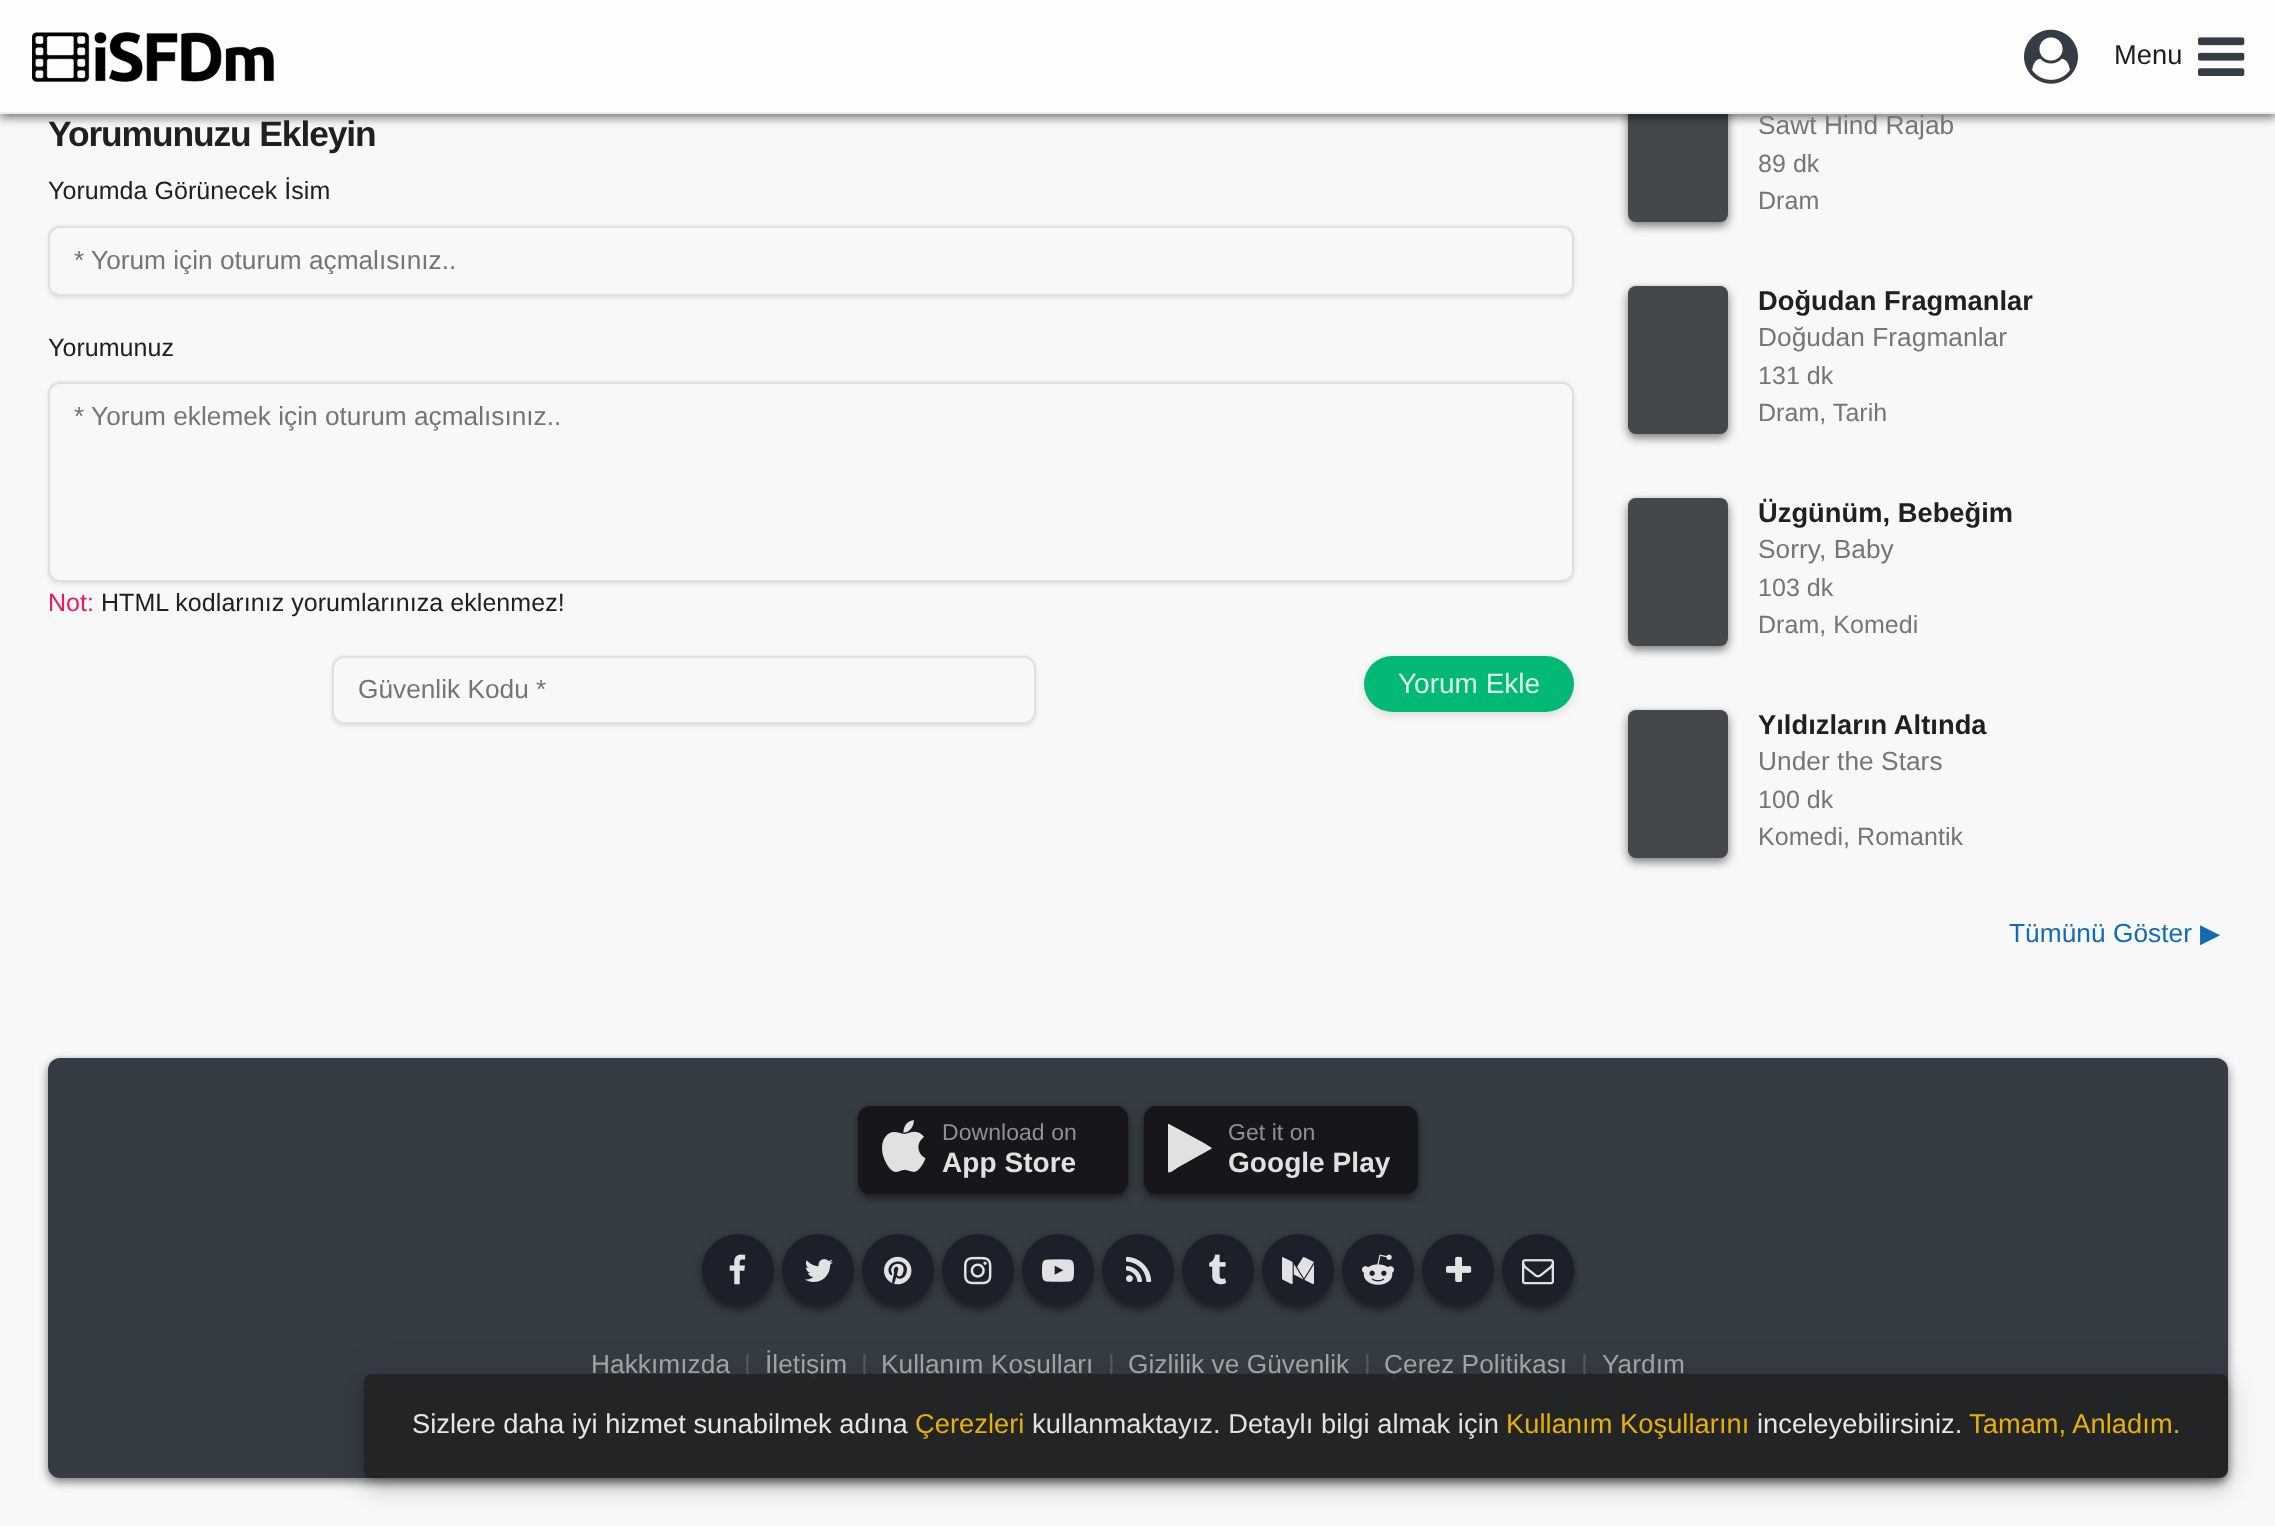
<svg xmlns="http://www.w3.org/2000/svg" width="2275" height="1526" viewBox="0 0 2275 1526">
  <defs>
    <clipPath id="clip1"><path d="M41 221H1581V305H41ZM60 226H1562C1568.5 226 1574 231.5 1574 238V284C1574 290.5 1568.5 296 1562 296H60C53.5 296 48 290.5 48 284V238C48 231.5 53.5 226 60 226Z" clip-rule="evenodd"/></clipPath>
    <clipPath id="clip2"><path d="M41 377H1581V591H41ZM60 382H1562C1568.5 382 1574 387.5 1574 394V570C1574 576.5 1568.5 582 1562 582H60C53.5 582 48 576.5 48 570V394C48 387.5 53.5 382 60 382Z" clip-rule="evenodd"/></clipPath>
    <clipPath id="clip3"><path d="M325 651H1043V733H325ZM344 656H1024C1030.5 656 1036 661.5 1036 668V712C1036 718.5 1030.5 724 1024 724H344C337.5 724 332 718.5 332 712V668C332 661.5 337.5 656 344 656Z" clip-rule="evenodd"/></clipPath>
    <clipPath id="clip4"><path d="M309 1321H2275V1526H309ZM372 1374H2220C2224.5 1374 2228 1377.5 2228 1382V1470C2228 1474.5 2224.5 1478 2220 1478H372C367.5 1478 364 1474.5 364 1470V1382C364 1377.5 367.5 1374 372 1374Z" clip-rule="evenodd"/></clipPath>
    <clipPath id="clip5"><path d="M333 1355H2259V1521H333ZM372 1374H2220C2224.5 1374 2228 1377.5 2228 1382V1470C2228 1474.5 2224.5 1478 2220 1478H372C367.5 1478 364 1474.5 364 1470V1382C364 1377.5 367.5 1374 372 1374Z" clip-rule="evenodd"/></clipPath>
    <clipPath id="clip6"><path d="M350 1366H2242V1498H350ZM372 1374H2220C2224.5 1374 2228 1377.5 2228 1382V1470C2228 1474.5 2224.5 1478 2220 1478H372C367.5 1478 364 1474.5 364 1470V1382C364 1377.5 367.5 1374 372 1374Z" clip-rule="evenodd"/></clipPath>
    <clipPath id="clip7"><path d="M74 244h1474v30H74z"/></clipPath>
  </defs>
  <rect width="100%" height="100%" fill="#f8f8f8"/>
  <rect x="1628" y="78" width="100" height="148" rx="8" fill="#00000080" filter="blur(5px)"/>
  <rect x="1628" y="74" width="100" height="148" rx="8" fill="#363c43"/>
  <rect x="1628" y="74" width="100" height="148" rx="8" fill="#78787833"/>
  <path d="M0 4h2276v114H0z" fill="#00000080" filter="blur(5px)"/>
  <path d="M0 0h2275v112H0z" fill="#fdfdfd"/>
  <path d="M0 112h2275v2H0z" fill="#ecedee"/>
  <image x="32" y="32" width="242" height="50" href="img/1.png"/>
  <image x="2024" y="29" width="54" height="55" href="img/2.png"/>
  <image x="2198" y="37" width="47" height="39" href="img/3.png"/>
  <path d="M60 224C52 224 48 231 48 238C48 231 53 226 60 226H1562C1569 226 1574 231 1574 238C1574 231 1570 224 1562 224Z" fill="#f3f3f3"/>
  <g clip-path="url(#clip1)">
    <rect x="48" y="228" width="1526" height="70" rx="12" fill="#0000001a" filter="blur(2px)"/>
  </g>
  <rect x="49" y="227" width="1524" height="68" rx="11" fill="none" stroke="#78828c33" stroke-width="2"/>
  <path d="M60 380C52 380 48 387 48 394C48 387 53 382 60 382H1562C1569 382 1574 387 1574 394C1574 387 1570 380 1562 380Z" fill="#f3f3f3"/>
  <g clip-path="url(#clip2)">
    <rect x="48" y="384" width="1526" height="200" rx="12" fill="#0000001a" filter="blur(2px)"/>
  </g>
  <rect x="49" y="383" width="1524" height="198" rx="11" fill="none" stroke="#78828c33" stroke-width="2"/>
  <path d="M344 654C336 654 332 661 332 668C332 661 337 656 344 656H1024C1031 656 1036 661 1036 668C1036 661 1032 654 1024 654Z" fill="#f3f3f3"/>
  <g clip-path="url(#clip3)">
    <rect x="332" y="658" width="704" height="68" rx="12" fill="#0000001a" filter="blur(2px)"/>
  </g>
  <rect x="333" y="657" width="702" height="66" rx="11" fill="none" stroke="#78828c33" stroke-width="2"/>
  <path d="M1392 654C1376 654 1363 667 1364 683C1365 668 1377 656 1392 656H1546C1561 656 1573 668 1574 683C1575 667 1562 654 1546 654Z" fill="#f3f3f3"/>
  <rect x="1364" y="660" width="210" height="56" rx="28" fill="#0000001a" filter="blur(4px)"/>
  <rect x="1364" y="656" width="210" height="56" rx="28" fill="#02b875"/>
  <path d="M1636 284C1630 284 1628 289 1628 294C1628 290 1632 286 1636 286H1720C1724 286 1728 290 1728 294C1728 289 1726 284 1720 284Z" fill="#f3f3f3"/>
  <rect x="1628" y="290" width="100" height="148" rx="8" fill="#00000080" filter="blur(5px)"/>
  <rect x="1628" y="286" width="100" height="148" rx="8" fill="#363c43"/>
  <rect x="1628" y="286" width="100" height="148" rx="8" fill="#78787833"/>
  <path d="M1636 496C1630 496 1628 501 1628 506C1628 502 1632 498 1636 498H1720C1724 498 1728 502 1728 506C1728 501 1726 496 1720 496Z" fill="#f3f3f3"/>
  <rect x="1628" y="502" width="100" height="148" rx="8" fill="#00000080" filter="blur(5px)"/>
  <rect x="1628" y="498" width="100" height="148" rx="8" fill="#363c43"/>
  <rect x="1628" y="498" width="100" height="148" rx="8" fill="#78787833"/>
  <path d="M1636 708C1630 708 1628 713 1628 718C1628 714 1632 710 1636 710H1720C1724 710 1728 714 1728 718C1728 713 1726 708 1720 708Z" fill="#f3f3f3"/>
  <rect x="1628" y="714" width="100" height="148" rx="8" fill="#00000080" filter="blur(5px)"/>
  <rect x="1628" y="710" width="100" height="148" rx="8" fill="#363c43"/>
  <rect x="1628" y="710" width="100" height="148" rx="8" fill="#78787833"/>
  <path d="M60 1056C52 1056 48 1063 48 1070C48 1063 53 1058 60 1058H2216C2223 1058 2228 1063 2228 1070C2228 1063 2224 1056 2216 1056Z" fill="#f3f3f3"/>
  <rect x="48" y="1062" width="2180" height="420" rx="12" fill="#00000080" filter="blur(5px)"/>
  <rect x="48" y="1058" width="2180" height="420" rx="12" fill="#363c43"/>
  <rect x="858" y="1110" width="270" height="88" rx="12" fill="#00000080" filter="blur(5px)"/>
  <rect x="858" y="1106" width="270" height="88" rx="12" fill="#17171b"/>
  <image x="882" y="1120" width="44" height="52" href="img/4.png"/>
  <rect x="1144" y="1110" width="274" height="88" rx="12" fill="#00000080" filter="blur(5px)"/>
  <rect x="1144" y="1106" width="274" height="88" rx="12" fill="#17171b"/>
  <path d="M1211 1149L1177 1168C1176 1169 1169 1174 1168 1172V1124H1169L1204 1143L1212 1148Z" fill="#e1e1e1"/>
  <rect x="702" y="1238" width="72" height="72" rx="36" fill="#00000080" filter="blur(5px)"/>
  <circle cx="738" cy="1270" r="36" fill="#1c202b"/>
  <image x="729" y="1254" width="17" height="31" href="img/5.png"/>
  <rect x="782" y="1238" width="72" height="72" rx="36" fill="#00000080" filter="blur(5px)"/>
  <circle cx="818" cy="1270" r="36" fill="#1c202b"/>
  <image x="805" y="1259" width="28" height="23" href="img/6.png"/>
  <rect x="862" y="1238" width="72" height="72" rx="36" fill="#00000080" filter="blur(5px)"/>
  <circle cx="898" cy="1270" r="36" fill="#1c202b"/>
  <image x="884" y="1256" width="28" height="29" href="img/7.png"/>
  <rect x="942" y="1238" width="72" height="72" rx="36" fill="#00000080" filter="blur(5px)"/>
  <circle cx="978" cy="1270" r="36" fill="#1c202b"/>
  <image x="964" y="1256" width="28" height="29" href="img/8.png"/>
  <rect x="1022" y="1238" width="72" height="72" rx="36" fill="#00000080" filter="blur(5px)"/>
  <circle cx="1058" cy="1270" r="36" fill="#1c202b"/>
  <image x="1042" y="1259" width="32" height="23" href="img/9.png"/>
  <rect x="1102" y="1238" width="72" height="72" rx="36" fill="#00000080" filter="blur(5px)"/>
  <circle cx="1138" cy="1270" r="36" fill="#1c202b"/>
  <image x="1126" y="1256" width="26" height="26" href="img/10.png"/>
  <rect x="1182" y="1238" width="72" height="72" rx="36" fill="#00000080" filter="blur(5px)"/>
  <circle cx="1218" cy="1270" r="36" fill="#1c202b"/>
  <image x="1209" y="1254" width="18" height="31" href="img/11.png"/>
  <rect x="1262" y="1238" width="72" height="72" rx="36" fill="#00000080" filter="blur(5px)"/>
  <circle cx="1298" cy="1270" r="36" fill="#1c202b"/>
  <image x="1282" y="1257" width="32" height="28" href="img/12.png"/>
  <rect x="1342" y="1238" width="72" height="72" rx="36" fill="#00000080" filter="blur(5px)"/>
  <circle cx="1378" cy="1270" r="36" fill="#1c202b"/>
  <image x="1362" y="1254" width="32" height="31" href="img/13.png"/>
  <rect x="1422" y="1238" width="72" height="72" rx="36" fill="#00000080" filter="blur(5px)"/>
  <circle cx="1458" cy="1270" r="36" fill="#1c202b"/>
  <image x="1446" y="1256" width="26" height="26" href="img/14.png"/>
  <rect x="1502" y="1238" width="72" height="72" rx="36" fill="#00000080" filter="blur(5px)"/>
  <circle cx="1538" cy="1270" r="36" fill="#1c202b"/>
  <image x="1522" y="1259" width="32" height="26" href="img/15.png"/>
  <g clip-path="url(#clip4)">
    <rect x="364" y="1376" width="1864" height="104" rx="8" fill="#0000001c" filter="blur(18px)"/>
  </g>
  <g clip-path="url(#clip5)">
    <rect x="364" y="1386" width="1864" height="104" rx="8" fill="#00000021" filter="blur(10px)"/>
  </g>
  <g clip-path="url(#clip6)">
    <rect x="366" y="1382" width="1860" height="100" rx="6" fill="#0000002e" filter="blur(5px)"/>
  </g>
  <text x="2114" y="64" font-family="Liberation Sans" font-size="27.25" letter-spacing="0.05" fill="#202020">Menu</text>
  <text x="48" y="146" font-family="Liberation Sans" font-size="35.4" font-weight="bold" letter-spacing="-1.1" fill="#202020">Yorumunuzu Ekleyin</text>
  <text x="48" y="199" font-family="Liberation Sans" font-size="25" letter-spacing="0.05" fill="#202020">Yorumda Görünecek İsim</text>
  <g clip-path="url(#clip7)">
    <text x="74" y="269" font-family="Liberation Sans" font-size="26.25" fill="#757575">* Yorum için oturum açmalısınız..</text>
  </g>
  <text x="48" y="356" font-family="Liberation Sans" font-size="25" letter-spacing="0.05" fill="#202020">Yorumunuz</text>
  <text x="74" y="425" font-family="Liberation Sans" font-size="26.25" fill="#757575">* Yorum eklemek için oturum açmalısınız..</text>
  <text x="48" y="611" font-family="Liberation Sans" font-size="25" letter-spacing="0.05" fill="#ef1960">Not:</text>
  <text x="101" y="611" font-family="Liberation Sans" font-size="25" letter-spacing="0.05" fill="#202020">HTML kodlarınız yorumlarınıza eklenmez!</text>
  <text x="358" y="698" font-family="Liberation Sans" font-size="26.25" fill="#757575">Güvenlik Kodu *</text>
  <text x="1398" y="693" font-family="Liberation Sans" font-size="28" fill="#def6ed">Yorum Ekle</text>
  <text x="1758" y="134" font-family="Liberation Sans" font-size="26.25" letter-spacing="0.05" fill="#757575">Sawt Hind Rajab</text>
  <g font-family="Liberation Sans" font-size="25" letter-spacing="0.05" fill="#757575">
    <text x="1758" y="172">89 dk</text>
    <text x="1758" y="209">Dram</text>
  </g>
  <text x="1758" y="310" font-family="Liberation Sans" font-size="27.25" font-weight="bold" letter-spacing="0.05" fill="#202020">Doğudan Fragmanlar</text>
  <text x="1758" y="346" font-family="Liberation Sans" font-size="26.25" letter-spacing="0.05" fill="#757575">Doğudan Fragmanlar</text>
  <g font-family="Liberation Sans" font-size="25" letter-spacing="0.05" fill="#757575">
    <text x="1758" y="384">131 dk</text>
    <text x="1758" y="421">Dram, Tarih</text>
  </g>
  <text x="1758" y="522" font-family="Liberation Sans" font-size="27.25" font-weight="bold" letter-spacing="0.05" fill="#202020">Üzgünüm, Bebeğim</text>
  <text x="1758" y="558" font-family="Liberation Sans" font-size="26.25" letter-spacing="0.05" fill="#757575">Sorry, Baby</text>
  <g font-family="Liberation Sans" font-size="25" letter-spacing="0.05" fill="#757575">
    <text x="1758" y="596">103 dk</text>
    <text x="1758" y="633">Dram, Komedi</text>
  </g>
  <text x="1758" y="734" font-family="Liberation Sans" font-size="27.25" font-weight="bold" letter-spacing="0.05" fill="#202020">Yıldızların Altında</text>
  <text x="1758" y="770" font-family="Liberation Sans" font-size="26.25" letter-spacing="0.05" fill="#757575">Under the Stars</text>
  <g font-family="Liberation Sans" font-size="25" letter-spacing="0.05" fill="#757575">
    <text x="1758" y="808">100 dk</text>
    <text x="1758" y="845">Komedi, Romantik</text>
  </g>
  <text x="2009" y="942" font-family="Liberation Sans" font-size="26.25" letter-spacing="0.05" fill="#136cb2">Tümünü Göster</text>
  <text x="2200" y="942" font-family="DejaVu Sans" font-size="26.25" letter-spacing="0.05" fill="#136cb2">▶</text>
  <text x="942" y="1140" font-family="Liberation Sans" font-size="23" letter-spacing="0.05" fill="#909092">Download on</text>
  <text x="942" y="1172" font-family="Liberation Sans" font-size="28" font-weight="bold" letter-spacing="0.05" fill="#e1e1e1">App Store</text>
  <text x="1228" y="1140" font-family="Liberation Sans" font-size="23" letter-spacing="0.05" fill="#909092">Get it on</text>
  <text x="1228" y="1172" font-family="Liberation Sans" font-size="28" font-weight="bold" letter-spacing="0.05" fill="#e1e1e1">Google Play</text>
  <text x="591" y="1373" font-family="Liberation Sans" font-size="26.25" letter-spacing="0.05" fill="#9fa2a5">Hakkımızda</text>
  <text x="744" y="1373" font-family="Liberation Sans" font-size="26.25" letter-spacing="0.05" fill="#56585b">|</text>
  <text x="765" y="1373" font-family="Liberation Sans" font-size="26.25" letter-spacing="0.05" fill="#9fa2a5">İletişim</text>
  <text x="861" y="1373" font-family="Liberation Sans" font-size="26.25" letter-spacing="0.05" fill="#56585b">|</text>
  <text x="881" y="1373" font-family="Liberation Sans" font-size="26.25" letter-spacing="0.05" fill="#9fa2a5">Kullanım Koşulları</text>
  <text x="1108" y="1373" font-family="Liberation Sans" font-size="26.25" letter-spacing="0.05" fill="#56585b">|</text>
  <text x="1128" y="1373" font-family="Liberation Sans" font-size="26.25" letter-spacing="0.05" fill="#9fa2a5">Gizlilik ve Güvenlik</text>
  <text x="1364" y="1373" font-family="Liberation Sans" font-size="26.25" letter-spacing="0.05" fill="#56585b">|</text>
  <text x="1384" y="1373" font-family="Liberation Sans" font-size="26.25" letter-spacing="0.05" fill="#9fa2a5">Çerez Politikası</text>
  <text x="1581" y="1373" font-family="Liberation Sans" font-size="26.25" letter-spacing="0.05" fill="#56585b">|</text>
  <text x="1602" y="1373" font-family="Liberation Sans" font-size="26.25" letter-spacing="0.05" fill="#9fa2a5">Yardım</text>
  <rect x="364" y="1374" width="1864" height="104" rx="8" fill="#202124e6"/>
  <text x="412" y="1433" font-family="Liberation Sans" font-size="27.25" letter-spacing="0.05" fill="#e5e6e8">Sizlere daha iyi hizmet sunabilmek adına</text>
  <text x="915" y="1433" font-family="Liberation Sans" font-size="27.25" letter-spacing="0.05" fill="#e6b104">Çerezleri</text>
  <text x="1032" y="1433" font-family="Liberation Sans" font-size="27.25" letter-spacing="0.05" fill="#e1e1e1">kullanmaktayız. Detaylı bilgi almak için</text>
  <text x="1506" y="1433" font-family="Liberation Sans" font-size="27.25" letter-spacing="0.05" fill="#e6b104">Kullanım Koşullarını</text>
  <text x="1757" y="1433" font-family="Liberation Sans" font-size="27.25" letter-spacing="0.05" fill="#e5e6e8">inceleyebilirsiniz.</text>
  <text x="1969" y="1433" font-family="Liberation Sans" font-size="27.25" letter-spacing="0.05" fill="#e6b104">Tamam, Anladım.</text>
</svg>
